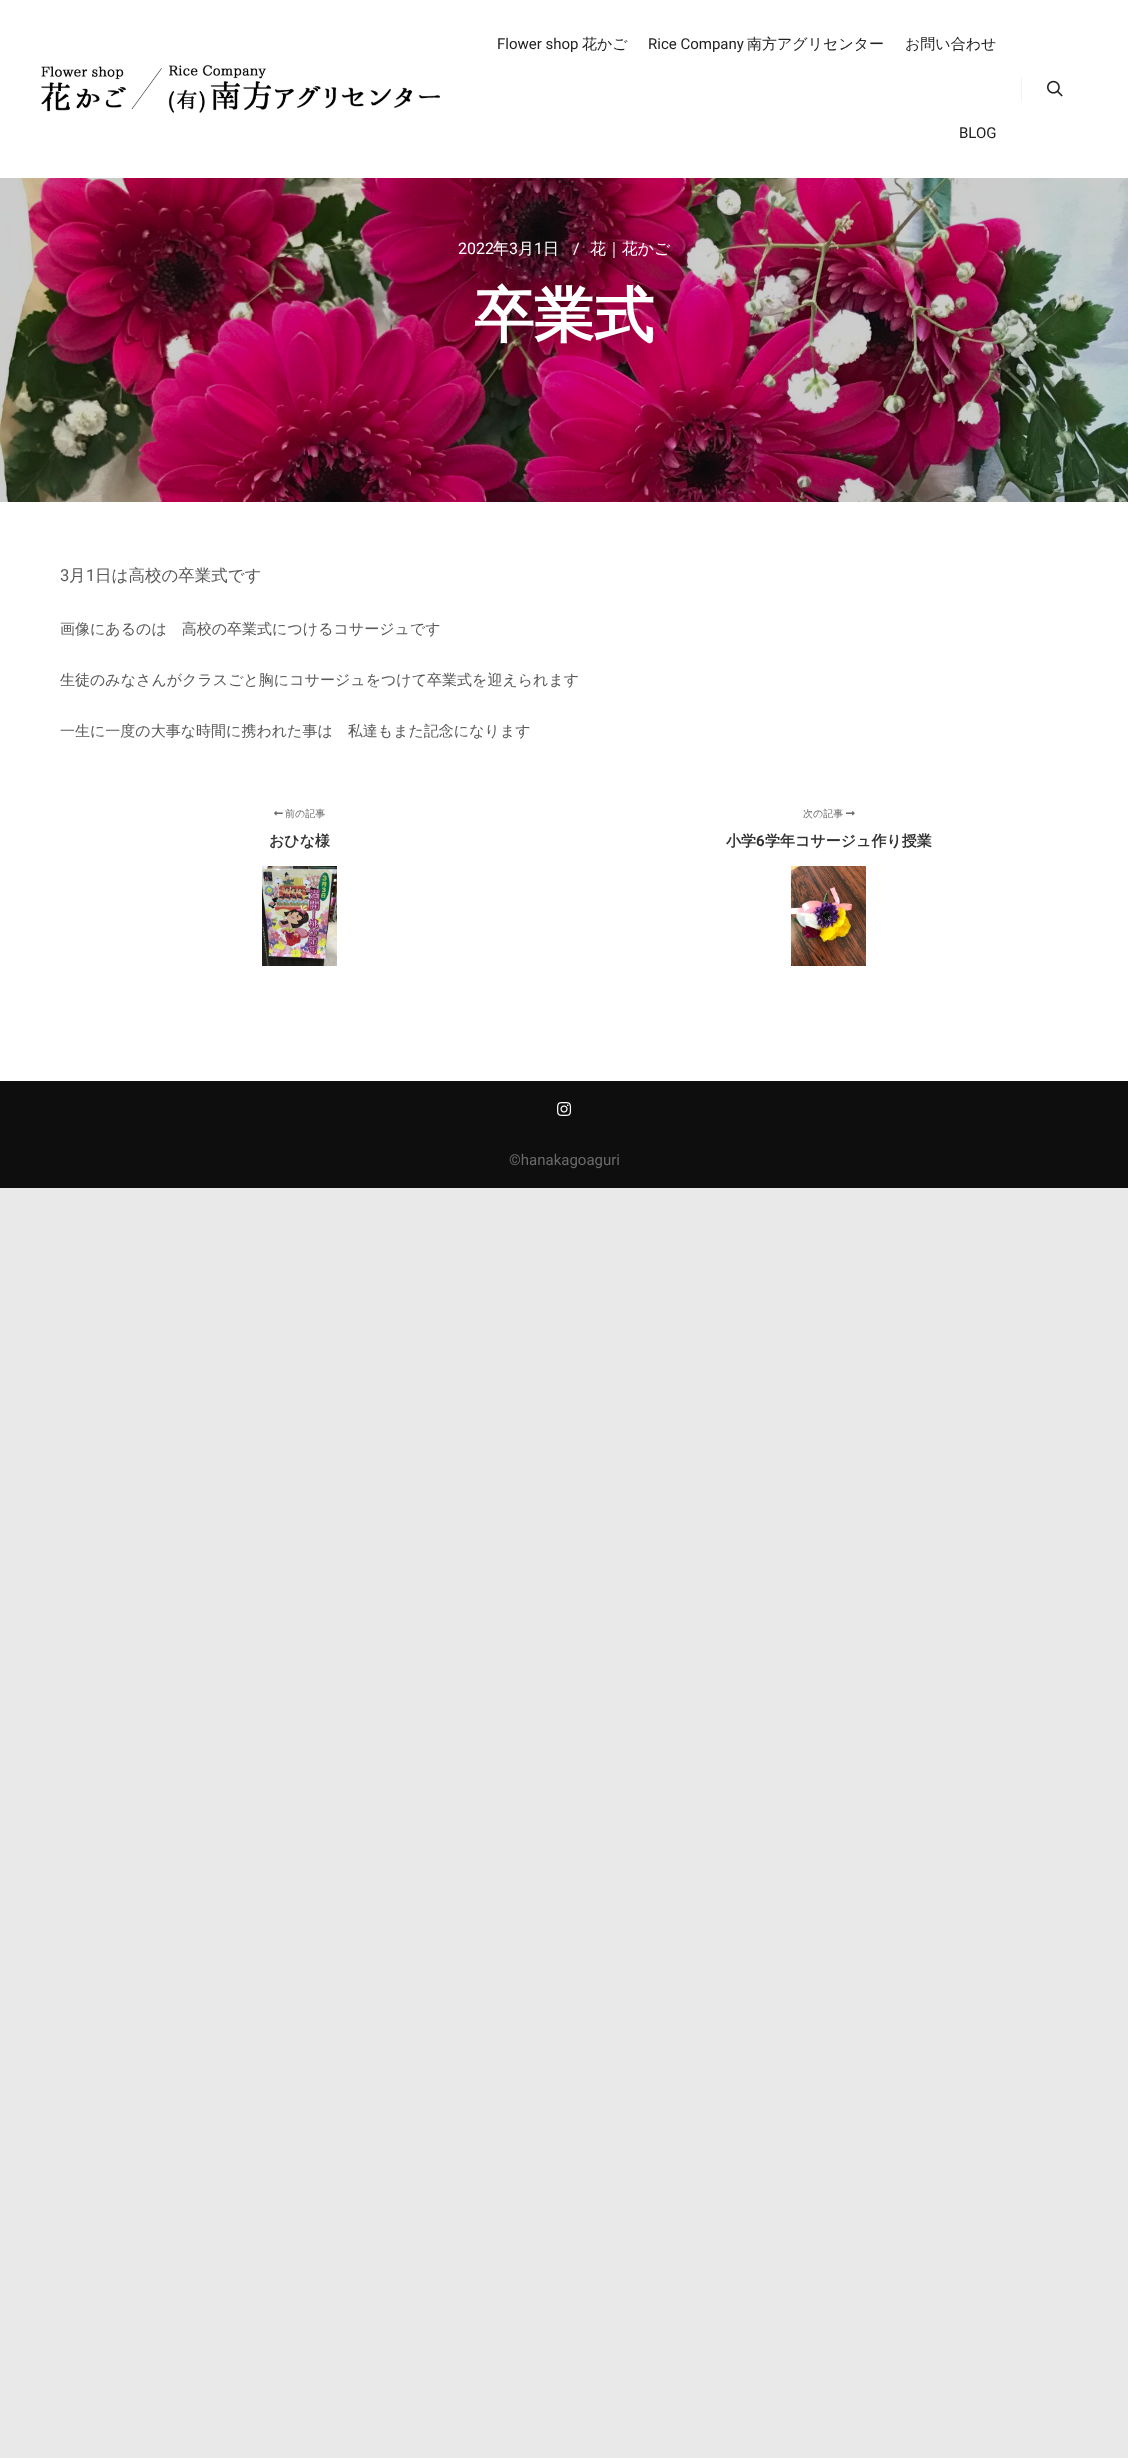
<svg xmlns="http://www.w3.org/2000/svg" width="1128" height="2458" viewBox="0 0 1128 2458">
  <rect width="100%" height="100%" fill="#e9e9e9"/>
  <path d="M0 0h1128v178H0z" fill="#fff"/>
  <image x="41" y="65" width="399" height="48" href="img/1.png"/>
  <path d="M1021 77h1v25H1021z" fill="#f3f3f3"/>
  <image x="1047" y="80" width="16" height="17" href="img/2.png"/>
  <image x="0" y="178" width="1128" height="324" href="img/3.png"/>
  <path d="M0 502h1128v579H0z" fill="#fff"/>
  <image x="274" y="811" width="9" height="5" href="img/4.png"/>
  <image x="262" y="866" width="75" height="100" href="img/5.png"/>
  <image x="846" y="811" width="9" height="5" href="img/6.png"/>
  <image x="791" y="866" width="75" height="100" href="img/7.png"/>
  <path d="M0 1081h1128v107H0z" fill="#0e0e0e"/>
  <image x="557" y="1102" width="15" height="14" href="img/8.png"/>
  <text x="497" y="49" font-family="Roboto" font-size="15" fill="#222">Flower shop</text>
  <text x="582" y="49" font-family="WenQuanYi Zen Hei" font-size="15" font-weight="500" fill="#222">花かご</text>
  <text x="648" y="49" font-family="Roboto" font-size="15" fill="#222">Rice Company</text>
  <g font-family="WenQuanYi Zen Hei" font-size="15" font-weight="500" fill="#222">
    <text x="747" y="49">南方アグリセンター</text>
    <text x="905" y="49">お問い合わせ</text>
  </g>
  <text x="959" y="138" font-family="Roboto" font-size="15" fill="#222">BLOG</text>
  <text x="458" y="254" font-family="Roboto" font-size="16" fill="#fff">2022</text>
  <text x="493" y="254" font-family="WenQuanYi Zen Hei" font-size="16" font-weight="500" fill="#fff">年</text>
  <text x="509" y="254" font-family="Roboto" font-size="16" fill="#fff">3</text>
  <text x="518" y="254" font-family="WenQuanYi Zen Hei" font-size="16" font-weight="500" fill="#fff">月</text>
  <text x="534" y="254" font-family="Roboto" font-size="16" fill="#fff">1</text>
  <text x="543" y="254" font-family="WenQuanYi Zen Hei" font-size="16" font-weight="500" fill="#fff">日</text>
  <text x="573" y="254" font-family="Roboto" font-size="16" fill="#fff">/</text>
  <text x="590" y="254" font-family="WenQuanYi Zen Hei" font-size="16" font-weight="500" fill="#fff">花｜花かご</text>
  <text x="474" y="336" font-family="WenQuanYi Zen Hei" font-size="60" font-weight="bold" fill="#fff">卒業式</text>
  <text x="60" y="581" font-family="Roboto" font-size="16.5" fill="#585858">3</text>
  <text x="69" y="581" font-family="WenQuanYi Zen Hei" font-size="16.5" font-weight="500" fill="#585858">月</text>
  <text x="86" y="581" font-family="Roboto" font-size="16.5" fill="#585858">1</text>
  <text x="95" y="581" font-family="WenQuanYi Zen Hei" font-size="16.5" font-weight="500" fill="#585858">日は高校の卒業式です</text>
  <g font-family="WenQuanYi Zen Hei" font-size="15" font-weight="500" fill="#585858">
    <text x="60" y="634">画像にあるのは　高校の卒業式につけるコサージュです</text>
    <text x="60" y="685">生徒のみなさんがクラスごと胸にコサージュをつけて卒業式を迎えられます</text>
    <text x="60" y="736">一生に一度の大事な時間に携われた事は　私達もまた記念になります</text>
  </g>
  <text x="285" y="817" font-family="WenQuanYi Zen Hei" font-size="10" font-weight="500" fill="#6a6a6a">前の記事</text>
  <text x="269" y="846" font-family="WenQuanYi Zen Hei" font-size="15" font-weight="bold" fill="#333">おひな様</text>
  <text x="803" y="817" font-family="WenQuanYi Zen Hei" font-size="10" font-weight="500" fill="#6a6a6a">次の記事</text>
  <text x="726" y="846" font-family="WenQuanYi Zen Hei" font-size="15" font-weight="bold" fill="#333">小学</text>
  <text x="756" y="846" font-family="Roboto" font-size="15" font-weight="bold" fill="#333">6</text>
  <text x="765" y="846" font-family="WenQuanYi Zen Hei" font-size="15" font-weight="bold" fill="#333">学年コサージュ作り授業</text>
  <text x="509" y="1165" font-family="Roboto" font-size="15" fill="#6a6a6a">©︎hanakagoaguri</text>
</svg>
